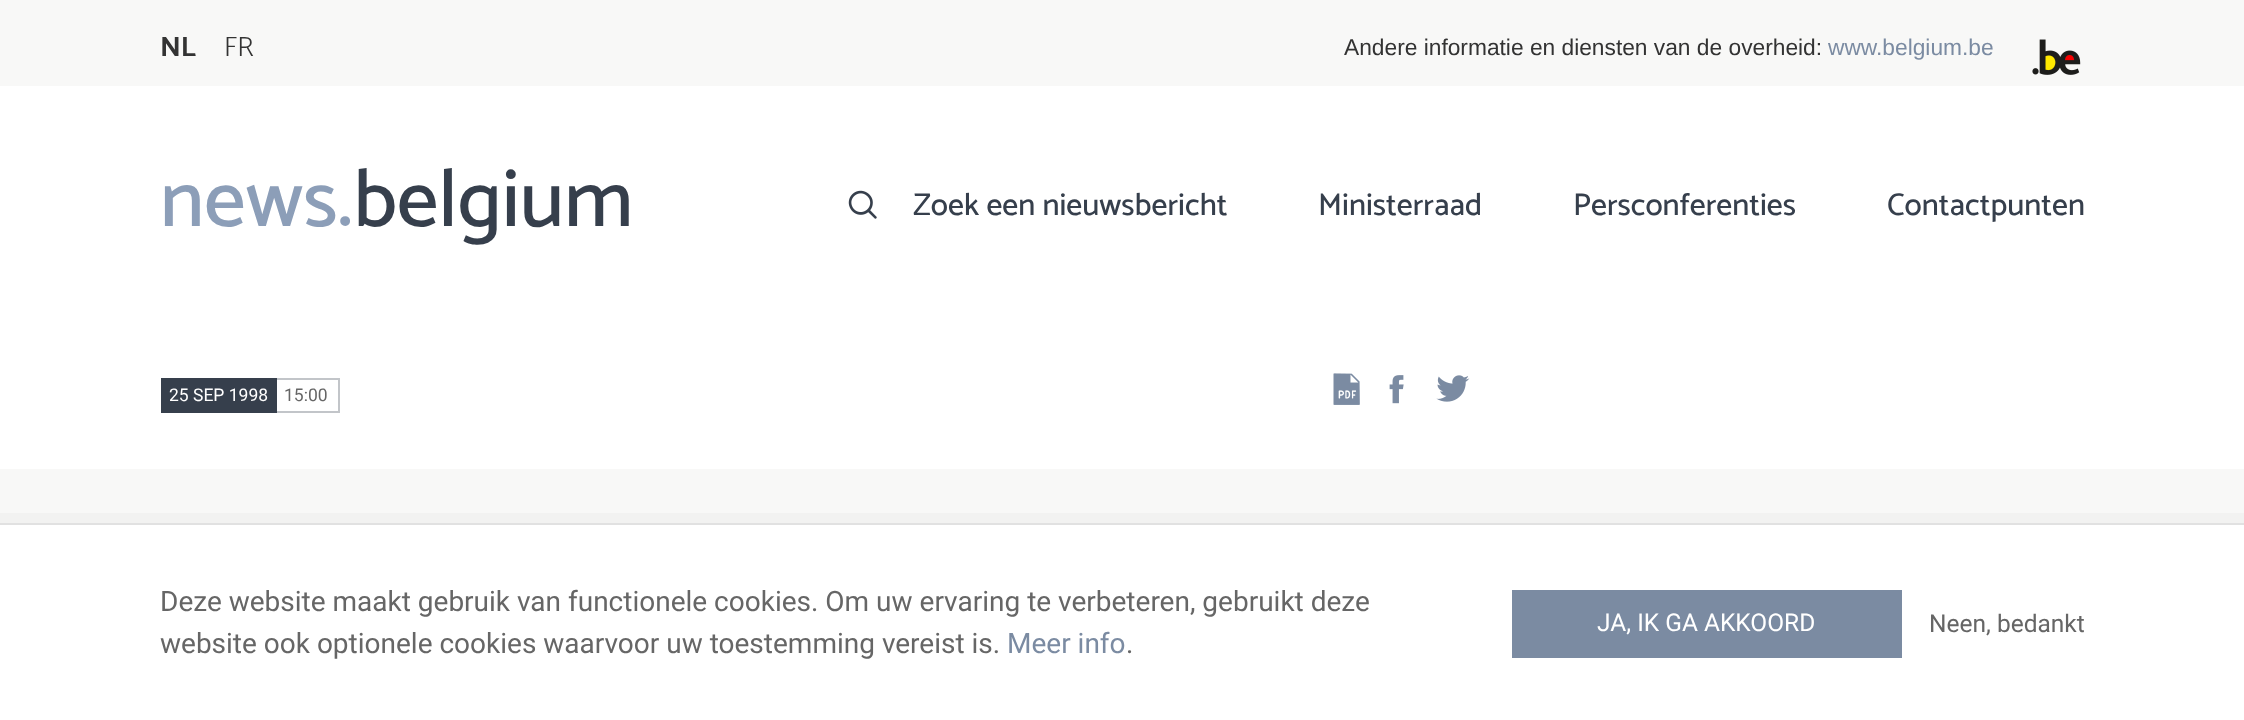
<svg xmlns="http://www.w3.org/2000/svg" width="2244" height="720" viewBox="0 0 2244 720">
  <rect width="100%" height="100%" fill="#f8f8f7"/>
  <image x="2032" y="39" width="49" height="36" href="img/1.png"/>
  <path d="M0 86h2244v383H0z" fill="#fff"/>
  <image x="848" y="190" width="29" height="29" href="img/2.png"/>
  <path d="M161 378h116v35H161z" fill="#363f4c"/>
  <path d="M277 378h63v2H277z" fill="#c2c5c9"/>
  <path d="M338 378h2v35H338z" fill="#c2c5c9"/>
  <path d="M277 411h63v2H277z" fill="#c2c5c9"/>
  <image x="1333" y="373" width="27" height="32" href="img/3.png"/>
  <image x="1389" y="375" width="15" height="29" href="img/4.png"/>
  <image x="1436" y="375" width="34" height="27" href="img/5.png"/>
  <path d="M-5 513V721H0V523H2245V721H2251V513Z" fill="#f2f2f1"/>
  <path d="M0 525h2244v195H0z" fill="#fff"/>
  <path d="M0 523h2244v2H0z" fill="#e1e1e1"/>
  <path d="M1512 590h390v68H1512z" fill="#7b8ba2"/>
  <text x="160" y="56" font-family="Catamaran" font-size="28" font-weight="bold" fill="#333">NL</text>
  <text x="224" y="56" font-family="Catamaran" font-size="28" font-weight="300" fill="#333">FR</text>
  <text x="1344" y="55" font-family="Liberation Sans" font-size="22.75" fill="#333">Andere informatie en diensten van de overheid:</text>
  <text x="1828" y="55" font-family="Liberation Sans" font-size="22.75" fill="#7b8ba2">www.belgium.be</text>
  <text x="160" y="226" font-family="Catamaran" font-size="82" font-weight="500" fill="#8c9eb8">news.</text>
  <text x="353" y="226" font-family="Catamaran" font-size="82" font-weight="500" fill="#363f4c">belgium</text>
  <g font-family="Catamaran" font-size="31.5" font-weight="500" fill="#363f4c">
    <text x="913" y="215">Zoek een nieuwsbericht</text>
    <text x="1318" y="215">Ministerraad</text>
    <text x="1573" y="215">Persconferenties</text>
    <text x="1887" y="215">Contactpunten</text>
  </g>
  <text x="169" y="401" font-family="Roboto" font-size="17.5" fill="#fff">25 SEP 1998</text>
  <text x="284" y="401" font-family="Roboto" font-size="17.5" fill="#666">15:00</text>
  <g font-family="Roboto" font-size="28" fill="#666">
    <text x="160" y="611">Deze website maakt gebruik van functionele cookies. Om uw ervaring te verbeteren, gebruikt deze</text>
    <text x="160" y="653">website ook optionele cookies waarvoor uw toestemming vereist is.</text>
  </g>
  <text x="1007" y="653" font-family="Roboto" font-size="28" fill="#7b8ba2">Meer info</text>
  <text x="1126" y="653" font-family="Roboto" font-size="28" fill="#666">.</text>
  <text x="1597" y="631" font-family="Roboto" font-size="24.5" fill="#fff">JA, IK GA AKKOORD</text>
  <text x="1929" y="632" font-family="Roboto" font-size="24.5" fill="#666">Neen, bedankt</text>
</svg>
